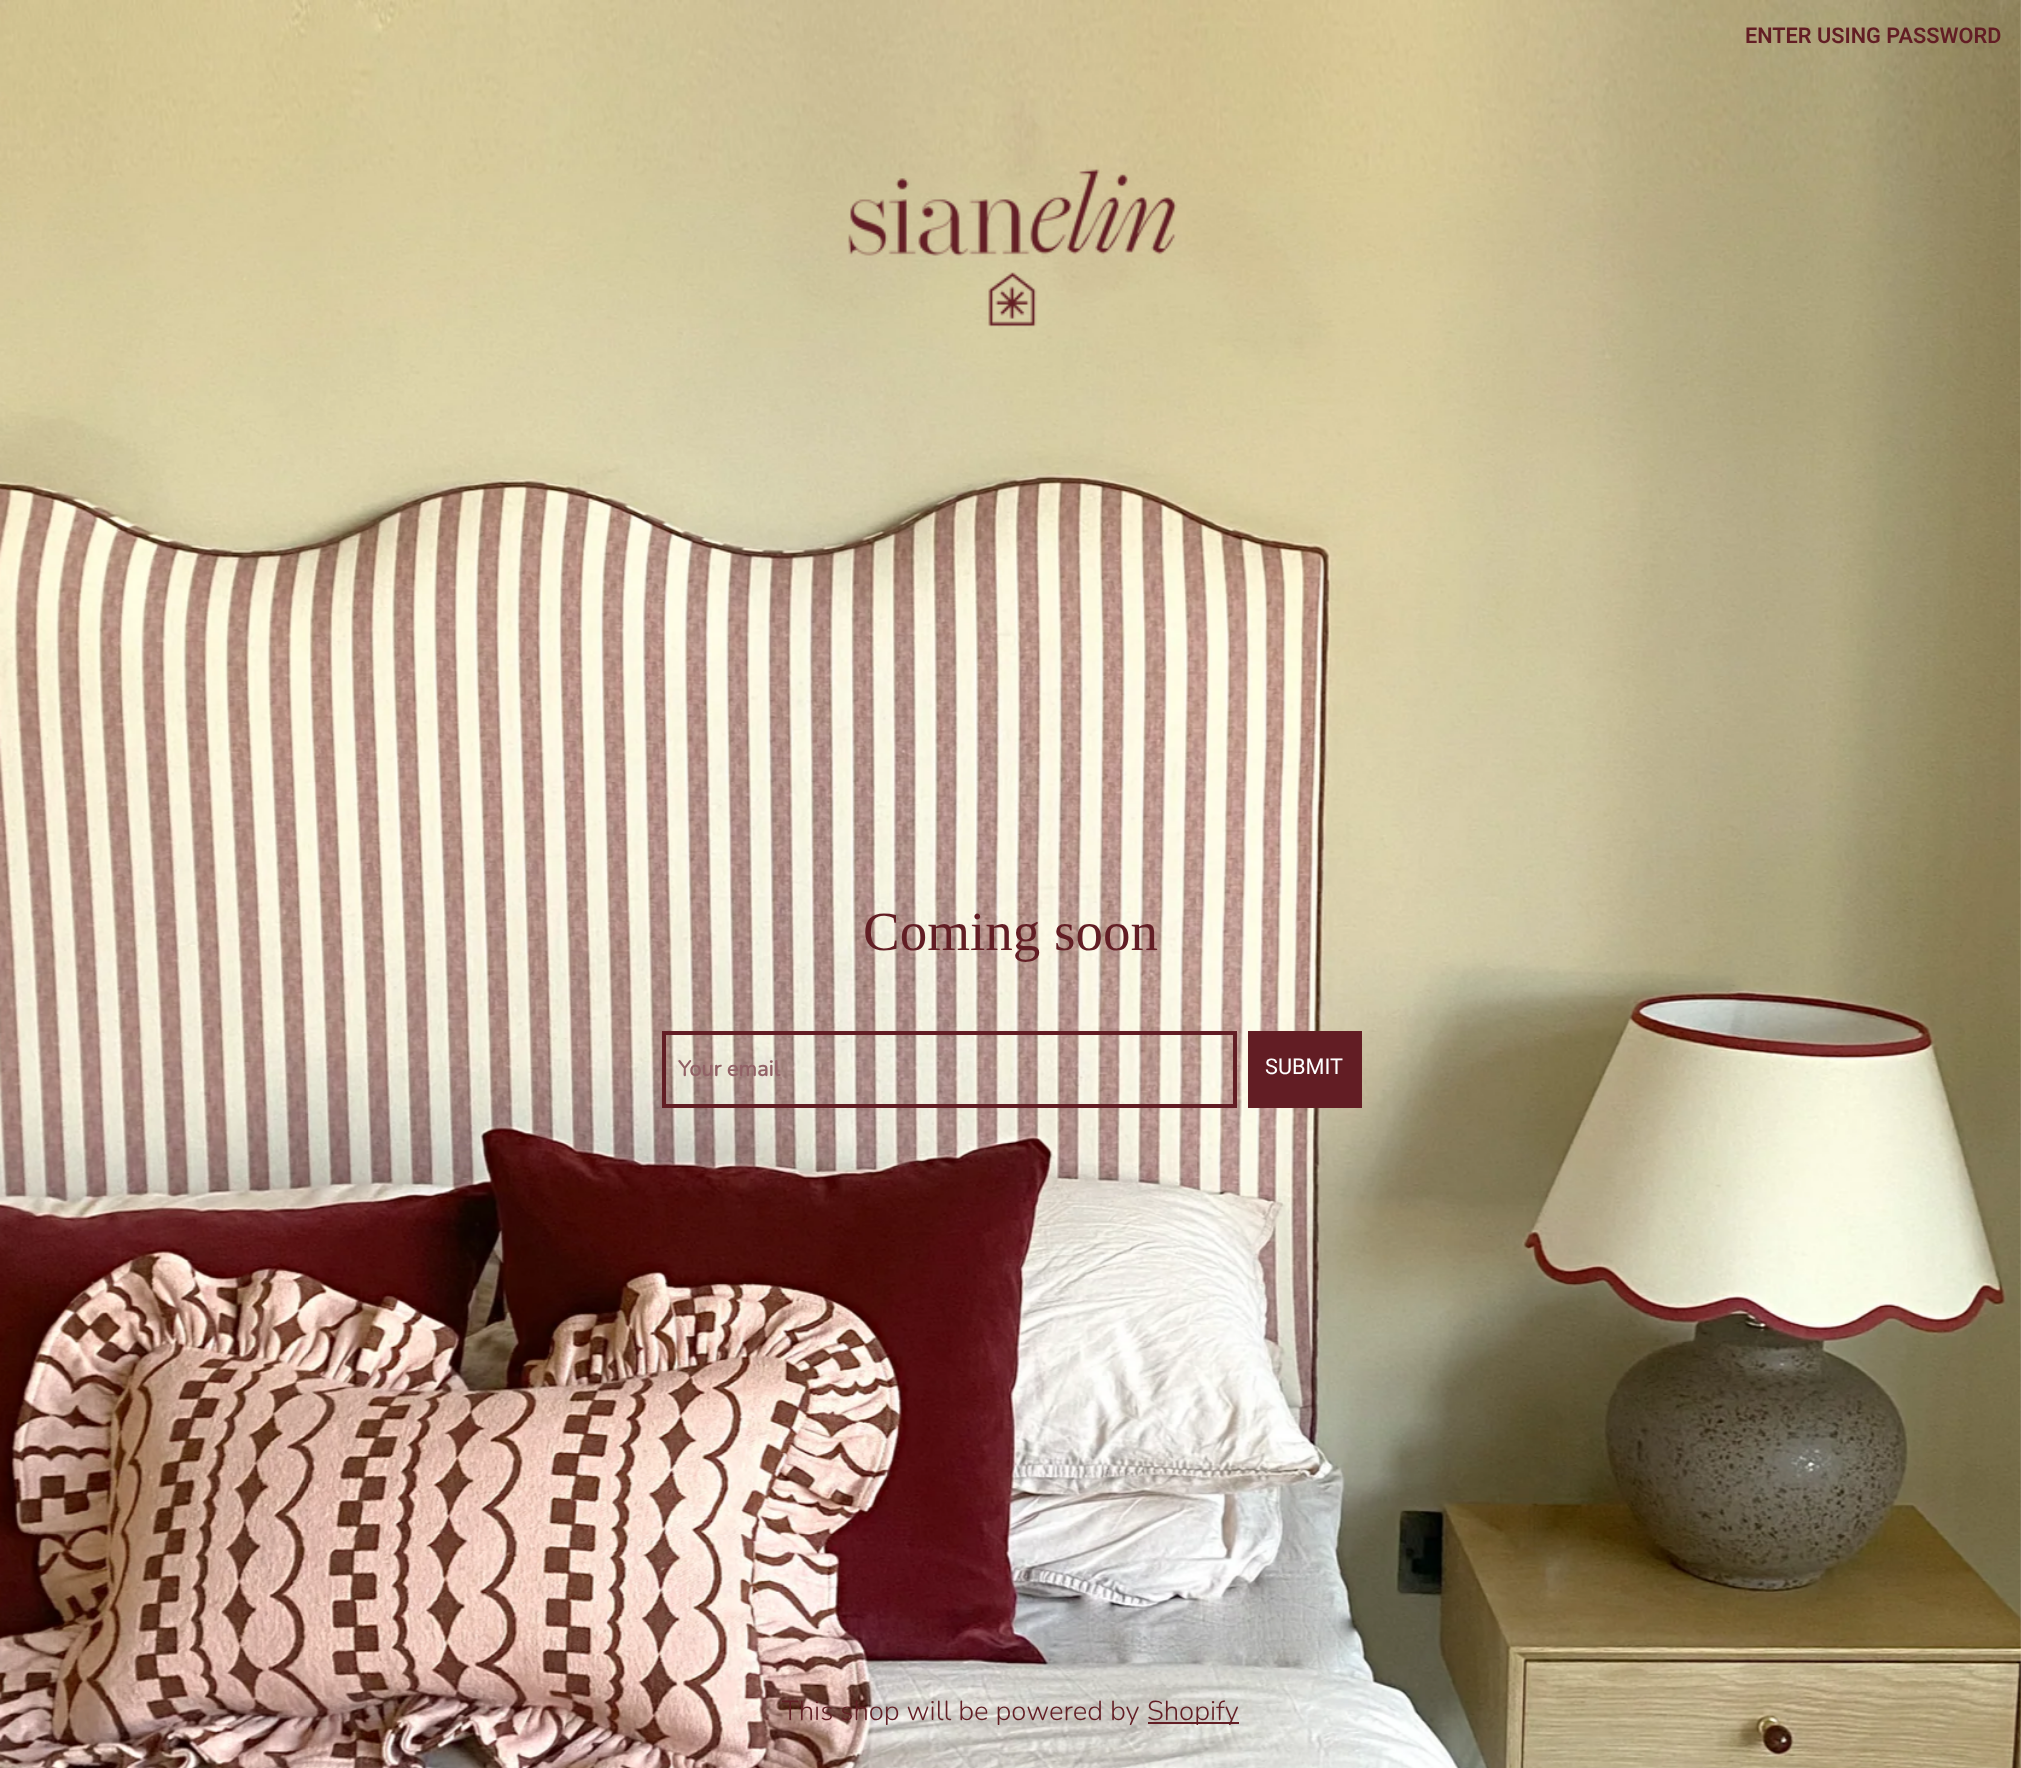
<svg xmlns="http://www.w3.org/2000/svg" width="2021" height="1768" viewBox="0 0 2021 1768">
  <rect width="100%" height="100%" fill="#fff"/>
  <image x="0" y="0" width="2021" height="1768" href="img/1.png"/>
  <image x="848" y="169" width="329" height="158" href="img/2.png"/>
  <path d="M664 1033h571v73H664z" fill="none" stroke="#621d24" stroke-width="4"/>
  <path d="M1248 1031h114v77H1248z" fill="#621d24"/>
  <path d="M1148 1722h91v2H1148z" fill="#621d24"/>
  <text x="1745" y="43" font-family="Roboto" font-size="21.7" font-weight="600" fill="#621d24">ENTER USING PASSWORD</text>
  <text x="863" y="950" font-family="Liberation Serif" font-size="55" fill="#621d24">Coming soon</text>
  <text x="678" y="1076" font-family="Nunito" font-size="21.7" font-weight="bold" fill="#916166">Your email</text>
  <text x="1265" y="1074" font-family="Roboto" font-size="21.7" fill="#fff">SUBMIT</text>
  <g font-family="Nunito" font-size="27.5" font-weight="300" fill="#621d24">
    <text x="782" y="1720">This shop will be powered by</text>
    <text x="1147" y="1720">Shopify</text>
  </g>
</svg>
